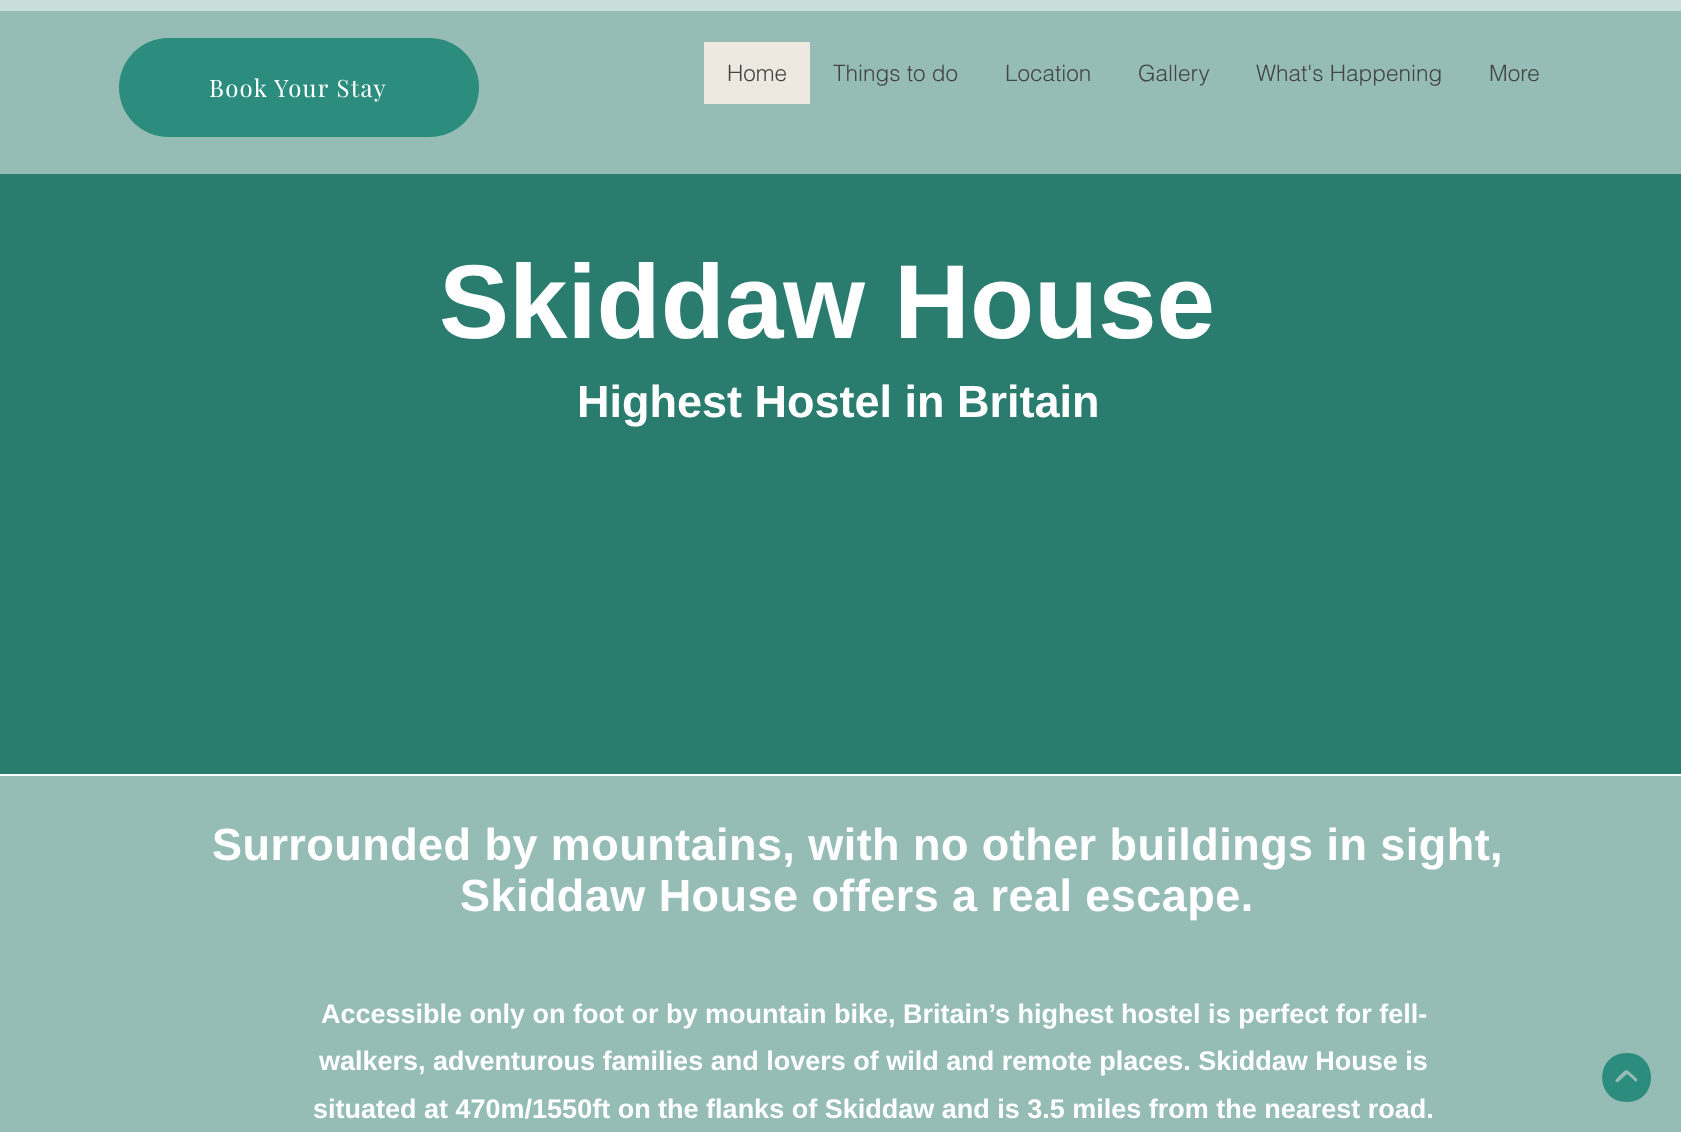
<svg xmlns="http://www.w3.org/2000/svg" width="1681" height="1132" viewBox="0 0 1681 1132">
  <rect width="100%" height="100%" fill="#fffefc"/>
  <path d="M0 11h1681v163H0z" fill="#95bdb6"/>
  <path d="M0 0h1681v11H0z" fill="#caded9"/>
  <path d="M704 42h106v62H704z" fill="#ede9e1"/>
  <rect x="119" y="38" width="360" height="99" rx="49.5" fill="#2c8d7e"/>
  <path d="M0 174h1681v600H0z" fill="#2a7c6f"/>
  <path d="M0 776h1681v356H0z" fill="#95bdb6"/>
  <path d="M1627 1053C1594 1053 1594 1102 1627 1102C1659 1102 1659 1053 1627 1053ZM1637 1081C1636 1083 1633 1079 1633 1079L1627 1074L1618 1082H1616C1614 1080 1619 1077 1619 1076C1627 1069 1625 1068 1633 1075C1633 1076 1639 1079 1637 1081Z" fill="#2c8d7e"/>
  <g font-family="helvetica" font-size="22.5" font-weight="300" fill="#444">
    <text x="727" y="81">Home</text>
    <text x="833" y="81">Things to do</text>
    <text x="1005" y="81">Location</text>
    <text x="1138" y="81">Gallery</text>
    <text x="1256" y="81">What's Happening</text>
    <text x="1489" y="81">More</text>
  </g>
  <text x="209" y="97" font-family="Playfair Display" font-size="24" letter-spacing="1.25" fill="#fff">Book Your Stay</text>
  <text x="439" y="338" font-family="Liberation Sans" font-size="105" font-weight="bold" fill="#fff">Skiddaw House</text>
  <text x="577" y="417" font-family="Liberation Sans" font-size="45" font-weight="bold" fill="#fff">Highest Hostel in Britain</text>
  <g font-family="Liberation Sans" font-size="45" font-weight="bold" letter-spacing="0.45" fill="#fff">
    <text x="212" y="860">Surrounded by mountains, with no other buildings in sight,</text>
    <text x="460" y="911">Skiddaw House offers a real escape.</text>
  </g>
  <g font-family="Liberation Sans" font-size="27" font-weight="bold" fill="#fff">
    <text x="321" y="1023">Accessible only on foot or by mountain bike, Britain’s highest hostel is perfect for fell-</text>
    <text x="319" y="1070">walkers, adventurous families and lovers of wild and remote places. Skiddaw House is</text>
    <text x="313" y="1118">situated at 470m/1550ft on the flanks of Skiddaw and is 3.5 miles from the nearest road.</text>
  </g>
</svg>
